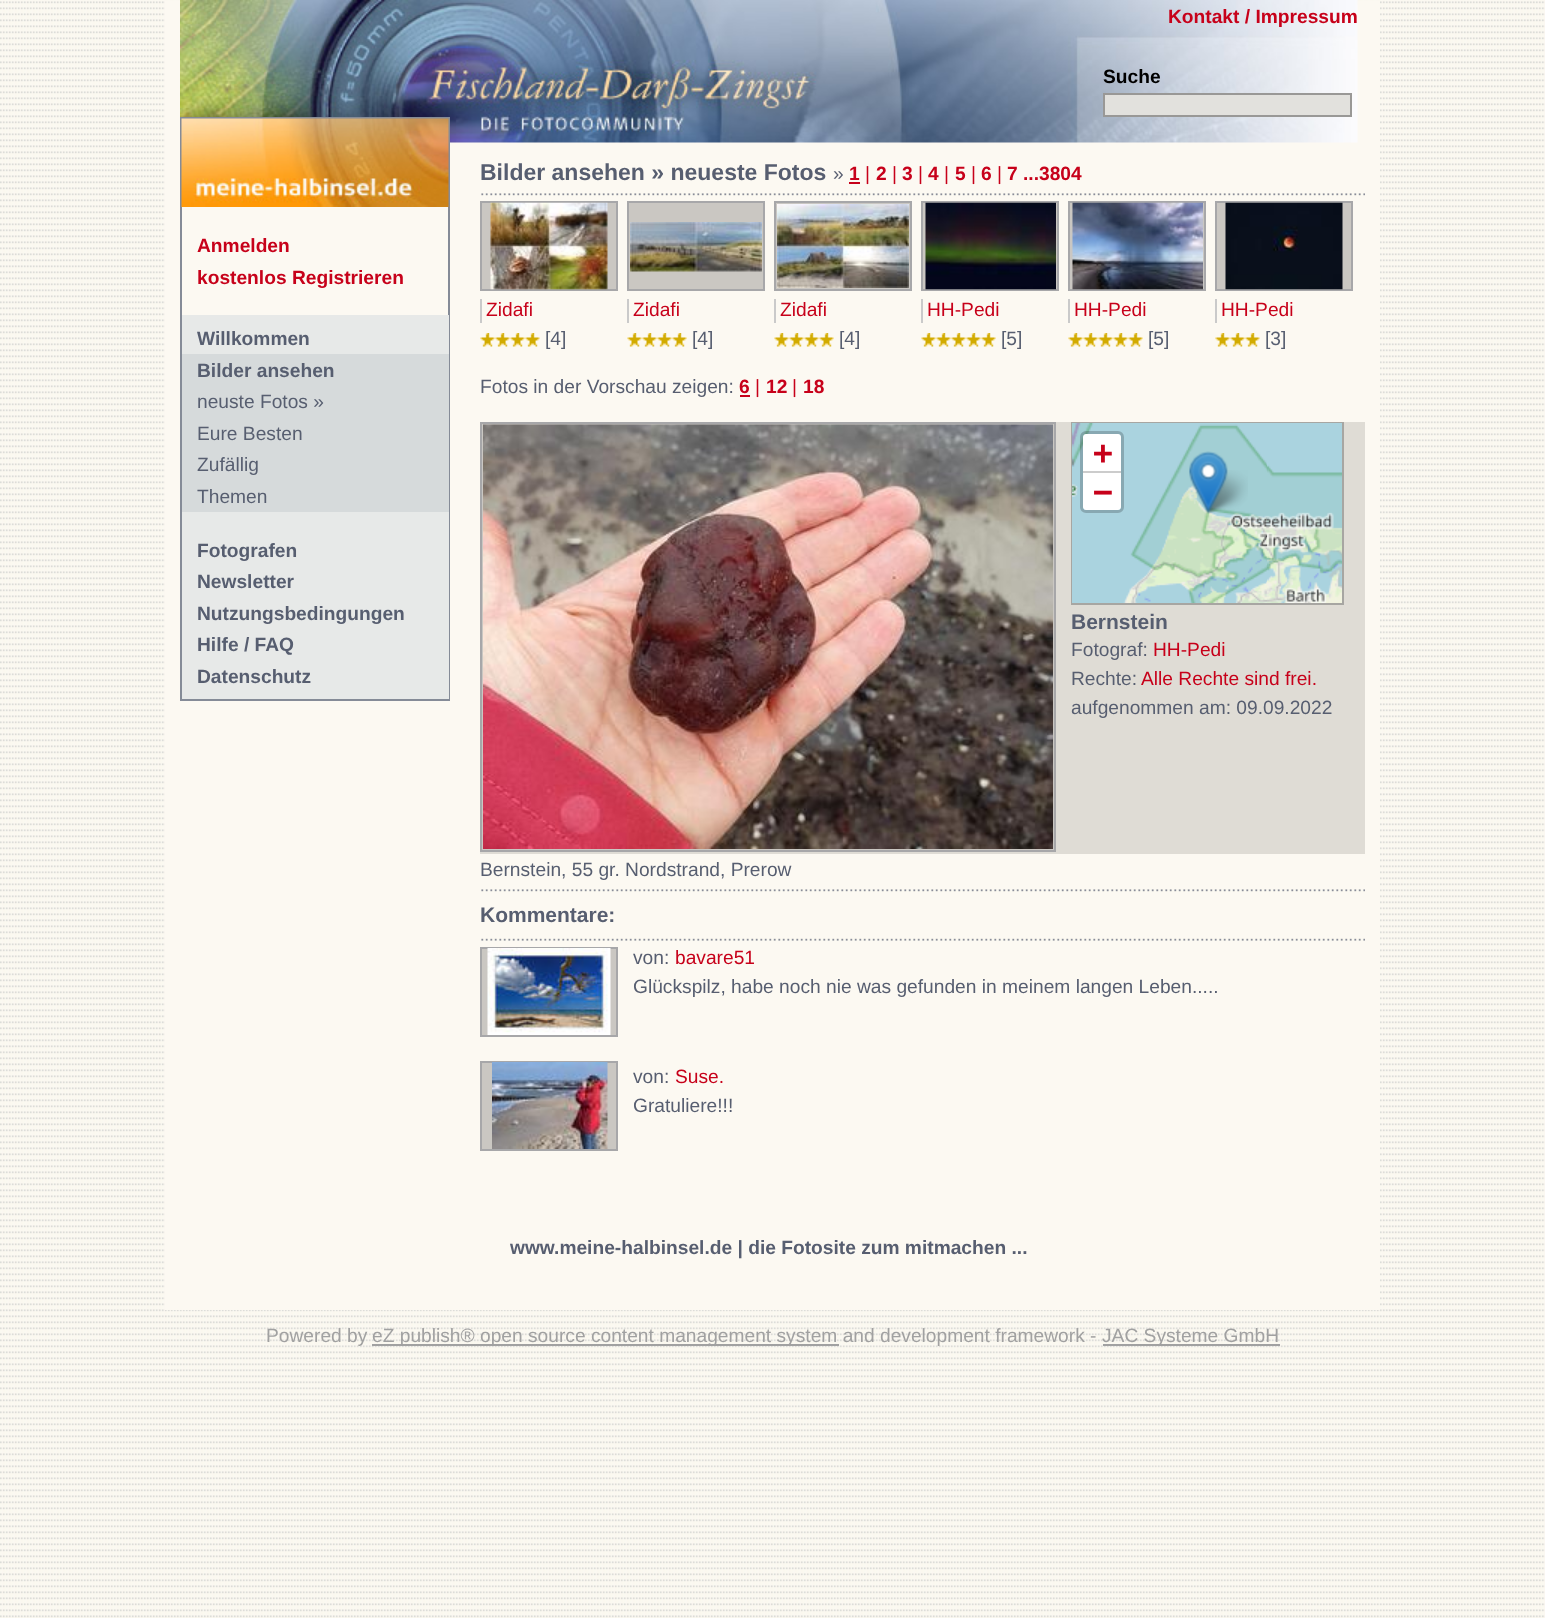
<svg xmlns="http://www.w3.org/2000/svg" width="1545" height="1618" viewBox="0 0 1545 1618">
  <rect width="100%" height="100%" fill="#fff"/>
  <image x="0" y="0" width="1545" height="1618" href="img/1.png"/>
  <path d="M165 1h1215v1309H165z" fill="#fcf9f2"/>
  <image x="180" y="0" width="1178" height="143" href="img/2.png"/>
  <path d="M1104 94h247v22H1104z" fill="#e2e1dd" stroke="#999896" stroke-width="2"/>
  <path d="M181 118h268v582H181z" fill="none" stroke="#858b97" stroke-width="2"/>
  <image x="181" y="118" width="268" height="89" href="img/3.png"/>
  <path d="M182 315h267v384H182z" fill="#e7e9e8"/>
  <path d="M182 354h267v158H182z" fill="#d6dadb"/>
  <path d="M849 182h11v2H849z" fill="#c7011a"/>
  <image x="481" y="193" width="884" height="3" href="img/4.png"/>
  <path d="M481 202h136v88H481z" fill="#cac7c2" stroke="#a7a7a9" stroke-width="2"/>
  <image x="490" y="202" width="118" height="88" href="img/5.png"/>
  <path d="M480 299h2v24H480z" fill="#cacaca"/>
  <image x="480" y="333" width="15" height="14" href="img/6.png"/>
  <image x="495" y="333" width="15" height="14" href="img/6.png"/>
  <image x="510" y="333" width="15" height="14" href="img/7.png"/>
  <image x="525" y="333" width="15" height="14" href="img/6.png"/>
  <path d="M628 202h136v88H628z" fill="#cac7c2" stroke="#a7a7a9" stroke-width="2"/>
  <image x="630" y="222" width="132" height="50" href="img/8.png"/>
  <path d="M627 299h2v24H627z" fill="#cacaca"/>
  <image x="627" y="333" width="15" height="14" href="img/7.png"/>
  <image x="642" y="333" width="15" height="14" href="img/7.png"/>
  <image x="657" y="333" width="15" height="14" href="img/7.png"/>
  <image x="672" y="333" width="15" height="14" href="img/7.png"/>
  <path d="M775 202h136v88H775z" fill="#cac7c2" stroke="#a7a7a9" stroke-width="2"/>
  <image x="777" y="204" width="132" height="84" href="img/9.png"/>
  <path d="M774 299h2v24H774z" fill="#cacaca"/>
  <image x="774" y="333" width="15" height="14" href="img/7.png"/>
  <image x="789" y="333" width="15" height="14" href="img/7.png"/>
  <image x="804" y="333" width="15" height="14" href="img/7.png"/>
  <image x="819" y="333" width="15" height="14" href="img/7.png"/>
  <path d="M922 202h136v88H922z" fill="#cac7c2" stroke="#a7a7a9" stroke-width="2"/>
  <image x="925" y="202" width="131" height="88" href="img/10.png"/>
  <path d="M921 299h2v24H921z" fill="#cacaca"/>
  <image x="921" y="333" width="15" height="14" href="img/7.png"/>
  <image x="936" y="333" width="15" height="14" href="img/7.png"/>
  <image x="951" y="333" width="15" height="14" href="img/7.png"/>
  <image x="966" y="333" width="15" height="14" href="img/7.png"/>
  <image x="981" y="333" width="15" height="14" href="img/7.png"/>
  <path d="M1069 202h136v88H1069z" fill="#cac7c2" stroke="#a7a7a9" stroke-width="2"/>
  <image x="1072" y="202" width="131" height="88" href="img/11.png"/>
  <path d="M1068 299h2v24H1068z" fill="#cacaca"/>
  <image x="1068" y="333" width="15" height="14" href="img/6.png"/>
  <image x="1083" y="333" width="15" height="14" href="img/6.png"/>
  <image x="1098" y="333" width="15" height="14" href="img/6.png"/>
  <image x="1113" y="333" width="15" height="14" href="img/6.png"/>
  <image x="1128" y="333" width="15" height="14" href="img/6.png"/>
  <path d="M1216 202h136v88H1216z" fill="#cac7c2" stroke="#a7a7a9" stroke-width="2"/>
  <image x="1225" y="202" width="118" height="88" href="img/12.png"/>
  <path d="M1215 299h2v24H1215z" fill="#cacaca"/>
  <image x="1215" y="333" width="15" height="14" href="img/6.png"/>
  <image x="1230" y="333" width="15" height="14" href="img/6.png"/>
  <image x="1245" y="333" width="15" height="14" href="img/6.png"/>
  <path d="M740 395h10v2H740z" fill="#c7011a"/>
  <path d="M480 422h885v432H480z" fill="#dfdcd5"/>
  <path d="M481 423h574v428H481z" fill="#cac7c2" stroke="#a7a7a9" stroke-width="2"/>
  <image x="483" y="424" width="570" height="425" href="img/13.png"/>
  <path d="M1072 423h271v181H1072z" fill="none" stroke="#a7a6a2" stroke-width="2"/>
  <image x="1072" y="423" width="195" height="180" href="img/14.png"/>
  <image x="1267" y="423" width="75" height="180" href="img/15.png"/>
  <image x="1203" y="470" width="45" height="44" href="img/17.png"/>
  <image x="1189" y="451" width="39" height="63" href="img/16.png"/>
  <rect x="1081.5" y="432.5" width="41" height="79" rx="4.5" fill="none" stroke="#00000033" stroke-width="3"/>
  <path d="M1086 434H1118C1119.5 434 1121 435.5 1121 437V473H1083V437C1083 435.5 1084.5 434 1086 434Z" fill="#fff"/>
  <path d="M1083 471h38v2H1083z" fill="#ccc"/>
  <path d="M1083 473H1121V507C1121 508.5 1119.5 510 1118 510H1086C1084.5 510 1083 508.5 1083 507Z" fill="#fff"/>
  <image x="481" y="889" width="884" height="3" href="img/18.png"/>
  <image x="481" y="938" width="884" height="3" href="img/19.png"/>
  <path d="M481 948h136v88H481z" fill="#cac7c2" stroke="#a7a7a9" stroke-width="2"/>
  <image x="487" y="948" width="124" height="87" href="img/20.png"/>
  <path d="M481 1062h136v88H481z" fill="#cac7c2" stroke="#a7a7a9" stroke-width="2"/>
  <image x="492" y="1062" width="116" height="87" href="img/21.png"/>
  <path d="M372 1344h467v2H372z" fill="#a1a1a1"/>
  <path d="M1103 1344h177v2H1103z" fill="#a1a1a1"/>
  <text x="1168" y="23" font-family="Liberation Sans" font-size="19.2" font-weight="bold" fill="#c7011a">Kontakt / Impressum</text>
  <text x="1103" y="83" font-family="Liberation Sans" font-size="19.2" font-weight="bold" fill="#000">Suche</text>
  <g font-family="Liberation Sans" font-size="19.2" font-weight="bold" fill="#c7011a">
    <text x="197" y="252">Anmelden</text>
    <text x="197" y="284">kostenlos Registrieren</text>
  </g>
  <g font-family="Liberation Sans" font-size="19.2" font-weight="bold" fill="#575e70">
    <text x="197" y="345">Willkommen</text>
    <text x="197" y="377">Bilder ansehen</text>
  </g>
  <g font-family="Liberation Sans" font-size="19.2" fill="#575e70">
    <text x="197" y="408">neuste Fotos »</text>
    <text x="197" y="440">Eure Besten</text>
    <text x="197" y="471">Zufällig</text>
    <text x="197" y="503">Themen</text>
  </g>
  <g font-family="Liberation Sans" font-size="19.2" font-weight="bold" fill="#575e70">
    <text x="197" y="557">Fotografen</text>
    <text x="197" y="588">Newsletter</text>
    <text x="197" y="620">Nutzungsbedingungen</text>
    <text x="197" y="651">Hilfe / FAQ</text>
    <text x="197" y="683">Datenschutz</text>
  </g>
  <text x="480" y="180" font-family="Liberation Sans" font-size="23" font-weight="bold" fill="#575e70">Bilder ansehen » neueste Fotos</text>
  <text x="833" y="180" font-family="Liberation Sans" font-size="19.2" fill="#575e70">»</text>
  <text x="849" y="180" font-family="Liberation Sans" font-size="19.2" font-weight="bold" fill="#c7011a">1</text>
  <text x="865" y="180" font-family="Liberation Sans" font-size="19.2" fill="#c7011a">|</text>
  <text x="876" y="180" font-family="Liberation Sans" font-size="19.2" font-weight="bold" fill="#c7011a">2</text>
  <text x="892" y="180" font-family="Liberation Sans" font-size="19.2" fill="#c7011a">|</text>
  <text x="902" y="180" font-family="Liberation Sans" font-size="19.2" font-weight="bold" fill="#c7011a">3</text>
  <text x="918" y="180" font-family="Liberation Sans" font-size="19.2" fill="#c7011a">|</text>
  <text x="928" y="180" font-family="Liberation Sans" font-size="19.2" font-weight="bold" fill="#c7011a">4</text>
  <text x="944" y="180" font-family="Liberation Sans" font-size="19.2" fill="#c7011a">|</text>
  <text x="955" y="180" font-family="Liberation Sans" font-size="19.2" font-weight="bold" fill="#c7011a">5</text>
  <text x="971" y="180" font-family="Liberation Sans" font-size="19.2" fill="#c7011a">|</text>
  <text x="981" y="180" font-family="Liberation Sans" font-size="19.2" font-weight="bold" fill="#c7011a">6</text>
  <text x="997" y="180" font-family="Liberation Sans" font-size="19.2" fill="#c7011a">|</text>
  <text x="1007" y="180" font-family="Liberation Sans" font-size="19.2" font-weight="bold" fill="#c7011a">7 ...3804</text>
  <text x="486" y="316" font-family="Liberation Sans" font-size="19.2" fill="#c7011a">Zidafi</text>
  <text x="545" y="345" font-family="Liberation Sans" font-size="19.2" fill="#575e70">[4]</text>
  <text x="633" y="316" font-family="Liberation Sans" font-size="19.2" fill="#c7011a">Zidafi</text>
  <text x="692" y="345" font-family="Liberation Sans" font-size="19.2" fill="#575e70">[4]</text>
  <text x="780" y="316" font-family="Liberation Sans" font-size="19.2" fill="#c7011a">Zidafi</text>
  <text x="839" y="345" font-family="Liberation Sans" font-size="19.2" fill="#575e70">[4]</text>
  <text x="927" y="316" font-family="Liberation Sans" font-size="19.2" fill="#c7011a">HH-Pedi</text>
  <text x="1001" y="345" font-family="Liberation Sans" font-size="19.2" fill="#575e70">[5]</text>
  <text x="1074" y="316" font-family="Liberation Sans" font-size="19.2" fill="#c7011a">HH-Pedi</text>
  <text x="1148" y="345" font-family="Liberation Sans" font-size="19.2" fill="#575e70">[5]</text>
  <text x="1221" y="316" font-family="Liberation Sans" font-size="19.2" fill="#c7011a">HH-Pedi</text>
  <g font-family="Liberation Sans" font-size="19.2" fill="#575e70">
    <text x="1265" y="345">[3]</text>
    <text x="480" y="393">Fotos in der Vorschau zeigen:</text>
  </g>
  <text x="739" y="393" font-family="Liberation Sans" font-size="19.2" font-weight="bold" fill="#c7011a">6</text>
  <text x="755" y="393" font-family="Liberation Sans" font-size="19.2" fill="#c7011a">|</text>
  <text x="766" y="393" font-family="Liberation Sans" font-size="19.2" font-weight="bold" fill="#c7011a">12</text>
  <text x="792" y="393" font-family="Liberation Sans" font-size="19.2" fill="#c7011a">|</text>
  <text x="803" y="393" font-family="Liberation Sans" font-size="19.2" font-weight="bold" fill="#c7011a">18</text>
  <g font-family="DejaVu Sans Mono" font-size="33" font-weight="bold" fill="#c7011a">
    <text x="1093" y="464">+</text>
    <text x="1093" y="503">−</text>
  </g>
  <text x="1071" y="629" font-family="Liberation Sans" font-size="21" font-weight="bold" fill="#575e70">Bernstein</text>
  <text x="1071" y="656" font-family="Liberation Sans" font-size="19.2" fill="#575e70">Fotograf:</text>
  <text x="1153" y="656" font-family="Liberation Sans" font-size="19.2" fill="#c7011a">HH-Pedi</text>
  <text x="1071" y="685" font-family="Liberation Sans" font-size="19.2" fill="#575e70">Rechte:</text>
  <text x="1141" y="685" font-family="Liberation Sans" font-size="19.2" fill="#c7011a">Alle Rechte sind frei.</text>
  <g font-family="Liberation Sans" font-size="19.2" fill="#575e70">
    <text x="1071" y="714">aufgenommen am: 09.09.2022</text>
    <text x="480" y="876">Bernstein, 55 gr. Nordstrand, Prerow</text>
  </g>
  <text x="480" y="922" font-family="Liberation Sans" font-size="21" font-weight="bold" fill="#575e70">Kommentare:</text>
  <text x="633" y="964" font-family="Liberation Sans" font-size="19.2" fill="#575e70">von:</text>
  <text x="675" y="964" font-family="Liberation Sans" font-size="19.2" fill="#c7011a">bavare51</text>
  <g font-family="Liberation Sans" font-size="19.2" fill="#575e70">
    <text x="633" y="993">Glückspilz, habe noch nie was gefunden in meinem langen Leben.....</text>
    <text x="633" y="1083">von:</text>
  </g>
  <text x="675" y="1083" font-family="Liberation Sans" font-size="19.2" fill="#c7011a">Suse.</text>
  <text x="633" y="1112" font-family="Liberation Sans" font-size="19.2" fill="#575e70">Gratuliere!!!</text>
  <text x="510" y="1254" font-family="Liberation Sans" font-size="19.2" font-weight="bold" fill="#575e70">www.meine-halbinsel.de | die Fotosite zum mitmachen ...</text>
  <g font-family="Liberation Sans" font-size="19.2" fill="#a1a1a1">
    <text x="266" y="1342">Powered by</text>
    <text x="372" y="1342">eZ publish® open source content management system and development framework -</text>
    <text x="1102" y="1342">JAC Systeme GmbH</text>
  </g>
</svg>
